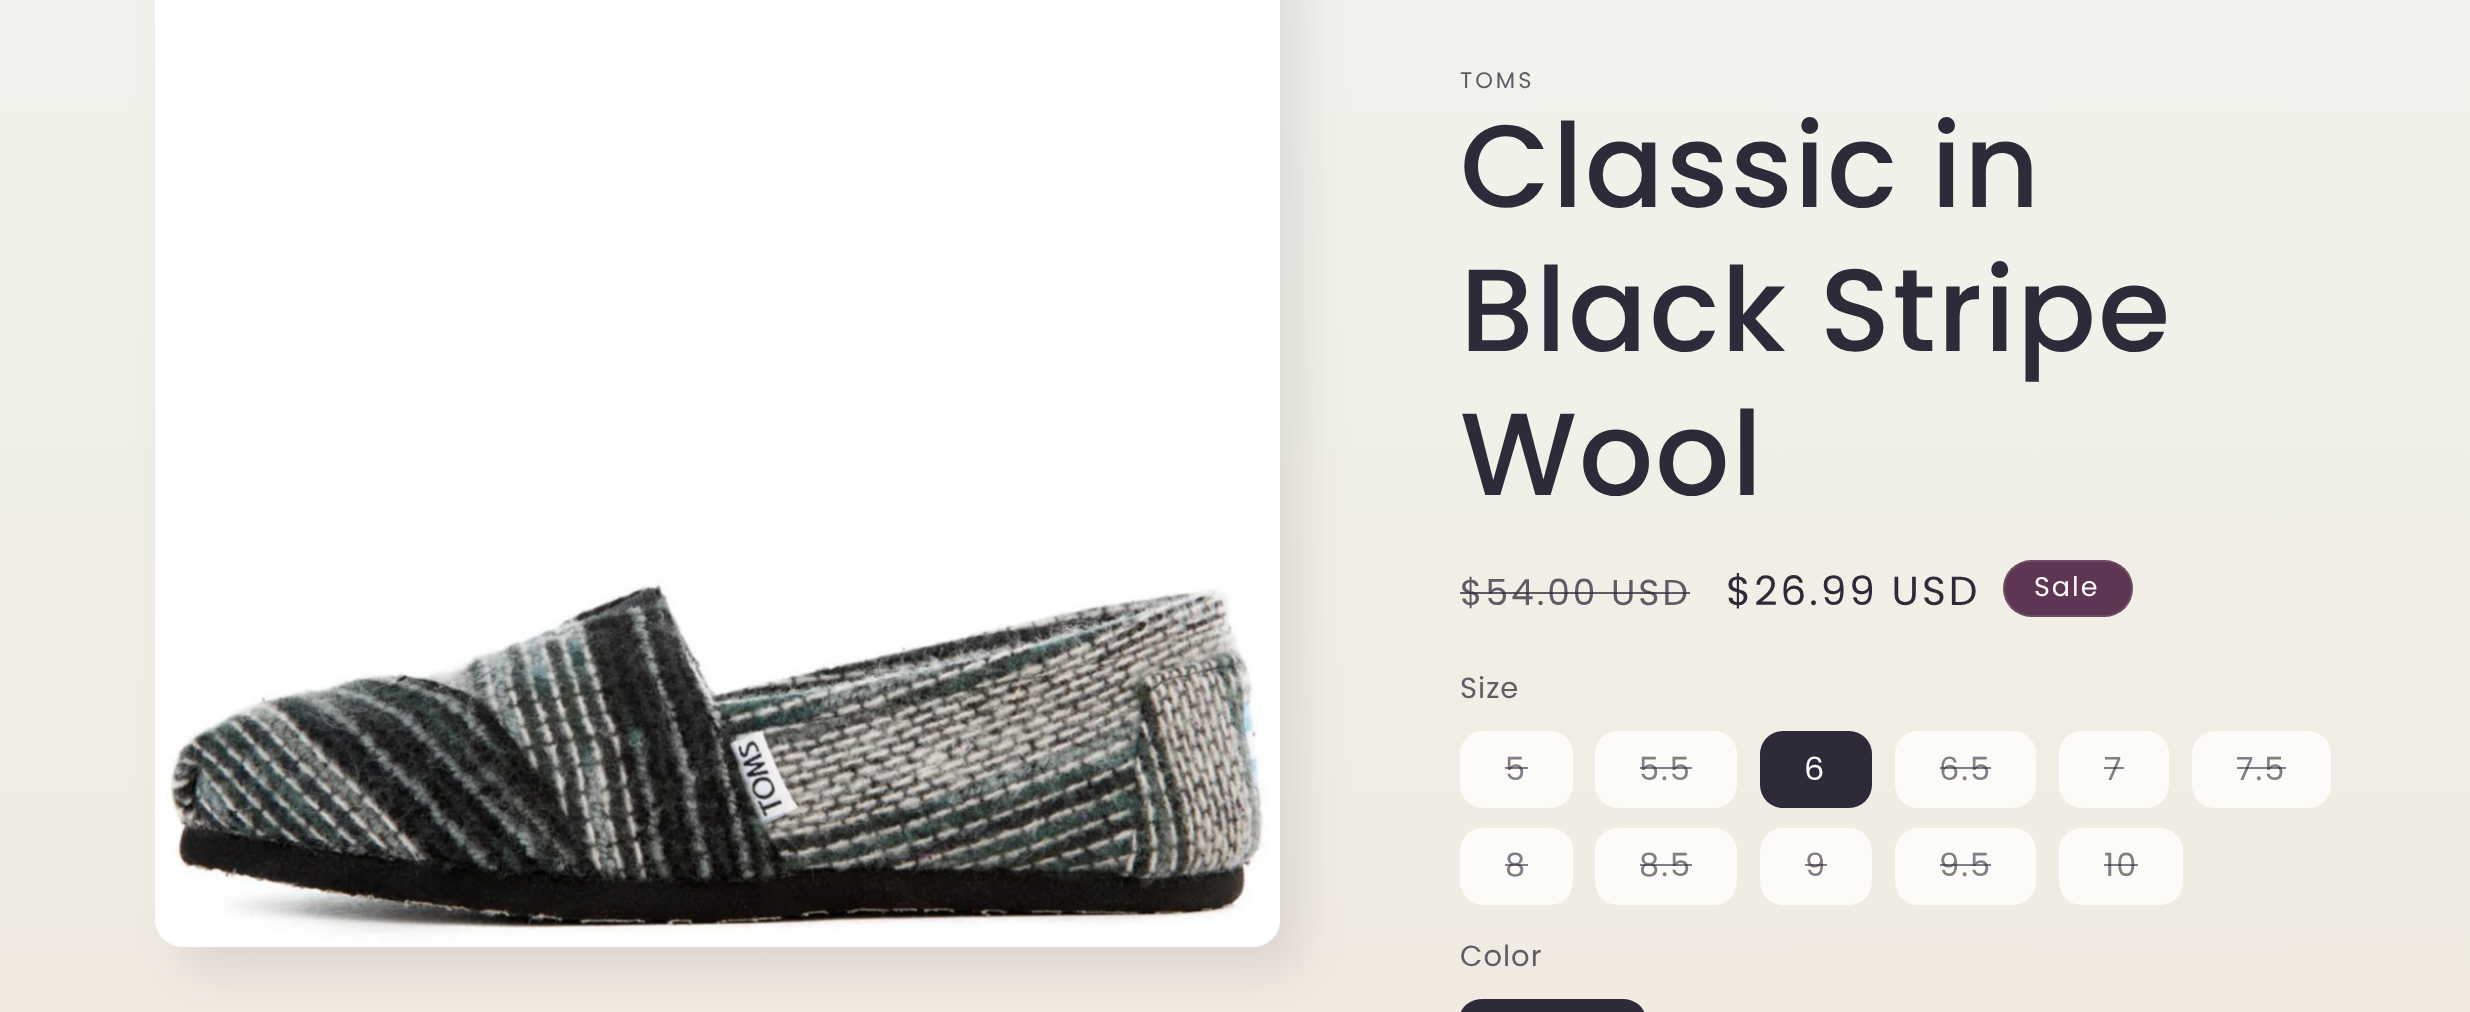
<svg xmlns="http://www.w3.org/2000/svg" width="2470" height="1012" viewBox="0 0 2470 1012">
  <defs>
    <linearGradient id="g1" gradientUnits="userSpaceOnUse" x1="1235" y1="0" x2="1235" y2="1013"><stop offset="0" stop-color="#f0f4ec"/><stop offset="1" stop-color="#f1ebe2"/></linearGradient>
  </defs>
  <rect width="100%" height="100%" fill="#fff"/>
  <path d="M0 0h2470v1012H0z" fill="url(#g1)"/>
  <rect x="178" y="-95" width="1125" height="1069" rx="27" fill="#2e2a391a" filter="blur(22.5px)"/>
  <path d="M155 0H1280V920C1280 935 1268 947 1253 947H182C167 947 155 935 155 920Z" fill="url(#g1)"/>
  <image x="155" y="0" width="1125" height="947" href="img/1.png"/>
  <rect x="2003" y="560" width="130" height="57" rx="28.5" fill="#5e3653"/>
  <rect x="2004" y="561" width="128" height="55" rx="27.5" fill="none" stroke="#fdfbf71a" stroke-width="2"/>
  <rect x="1460" y="731" width="113" height="77" rx="23" fill="#fdfbf7"/>
  <rect x="1595" y="731" width="142" height="77" rx="23" fill="#fdfbf7"/>
  <rect x="1760" y="731" width="112" height="77" rx="23" fill="#2e2a39"/>
  <rect x="1895" y="731" width="141" height="77" rx="23" fill="#fdfbf7"/>
  <rect x="2059" y="731" width="110" height="77" rx="23" fill="#fdfbf7"/>
  <rect x="2192" y="731" width="139" height="77" rx="23" fill="#fdfbf7"/>
  <rect x="1460" y="828" width="113" height="77" rx="23" fill="#fdfbf7"/>
  <rect x="1595" y="828" width="142" height="77" rx="23" fill="#fdfbf7"/>
  <rect x="1760" y="828" width="112" height="77" rx="23" fill="#fdfbf7"/>
  <rect x="1895" y="828" width="141" height="77" rx="23" fill="#fdfbf7"/>
  <rect x="2059" y="828" width="124" height="77" rx="23" fill="#fdfbf7"/>
  <rect x="1460" y="999" width="185" height="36" rx="23" fill="#2e2a39"/>
  <text x="1460" y="88" font-family="Poppins" font-size="22.5" letter-spacing="3" fill="#5f5c66">TOMS</text>
  <g font-family="Poppins" font-size="117" font-weight="500" letter-spacing="1.75" fill="#2e2a39">
    <text x="1460" y="207">Classic in</text>
    <text x="1460" y="351">Black Stripe</text>
    <text x="1460" y="495">Wool</text>
  </g>
  <text x="1460" y="605" font-family="Poppins" font-size="36" letter-spacing="3" fill="#5f5c66">$54.00 USD</text>
  <path d="M1460 592h230v2H1460z" fill="#2e2a39bf"/>
  <text x="1726" y="605" font-family="Poppins" font-size="40.5" letter-spacing="3" fill="#2e2a39">$26.99 USD</text>
  <text x="2034" y="596" font-family="Poppins" font-size="27" letter-spacing="2" fill="#fdfbf7">Sale</text>
  <text x="1460" y="698" font-family="Poppins" font-size="29" letter-spacing="1" fill="#5f5c66">Size</text>
  <text x="1505" y="780" font-family="Poppins" font-size="32" letter-spacing="2" fill="#817e85">5</text>
  <path d="M1505 767h23v2H1505z" fill="#2e2a3999"/>
  <text x="1639" y="780" font-family="Poppins" font-size="32" letter-spacing="2" fill="#817e85">5.5</text>
  <path d="M1640 767h52v2H1640z" fill="#2e2a3999"/>
  <text x="1804" y="780" font-family="Poppins" font-size="32" letter-spacing="2" fill="#fdfbf7">6</text>
  <text x="1939" y="780" font-family="Poppins" font-size="32" letter-spacing="2" fill="#817e85">6.5</text>
  <path d="M1940 767h51v2H1940z" fill="#2e2a3999"/>
  <text x="2104" y="780" font-family="Poppins" font-size="32" letter-spacing="2" fill="#817e85">7</text>
  <path d="M2104 767h20v2H2104z" fill="#2e2a3999"/>
  <text x="2236" y="780" font-family="Poppins" font-size="32" letter-spacing="2" fill="#817e85">7.5</text>
  <path d="M2237 767h49v2H2237z" fill="#2e2a3999"/>
  <text x="1505" y="876" font-family="Poppins" font-size="32" letter-spacing="2" fill="#817e85">8</text>
  <path d="M1505 864h23v2H1505z" fill="#2e2a3999"/>
  <text x="1639" y="876" font-family="Poppins" font-size="32" letter-spacing="2" fill="#817e85">8.5</text>
  <path d="M1640 864h52v2H1640z" fill="#2e2a3999"/>
  <text x="1805" y="876" font-family="Poppins" font-size="32" letter-spacing="2" fill="#817e85">9</text>
  <path d="M1805 864h22v2H1805z" fill="#2e2a3999"/>
  <text x="1939" y="876" font-family="Poppins" font-size="32" letter-spacing="2" fill="#817e85">9.5</text>
  <path d="M1940 864h51v2H1940z" fill="#2e2a3999"/>
  <text x="2104" y="876" font-family="Poppins" font-size="32" letter-spacing="2" fill="#817e85">10</text>
  <path d="M2104 864h34v2H2104z" fill="#2e2a3999"/>
  <text x="1460" y="966" font-family="Poppins" font-size="29" letter-spacing="1" fill="#5f5c66">Color</text>
</svg>
